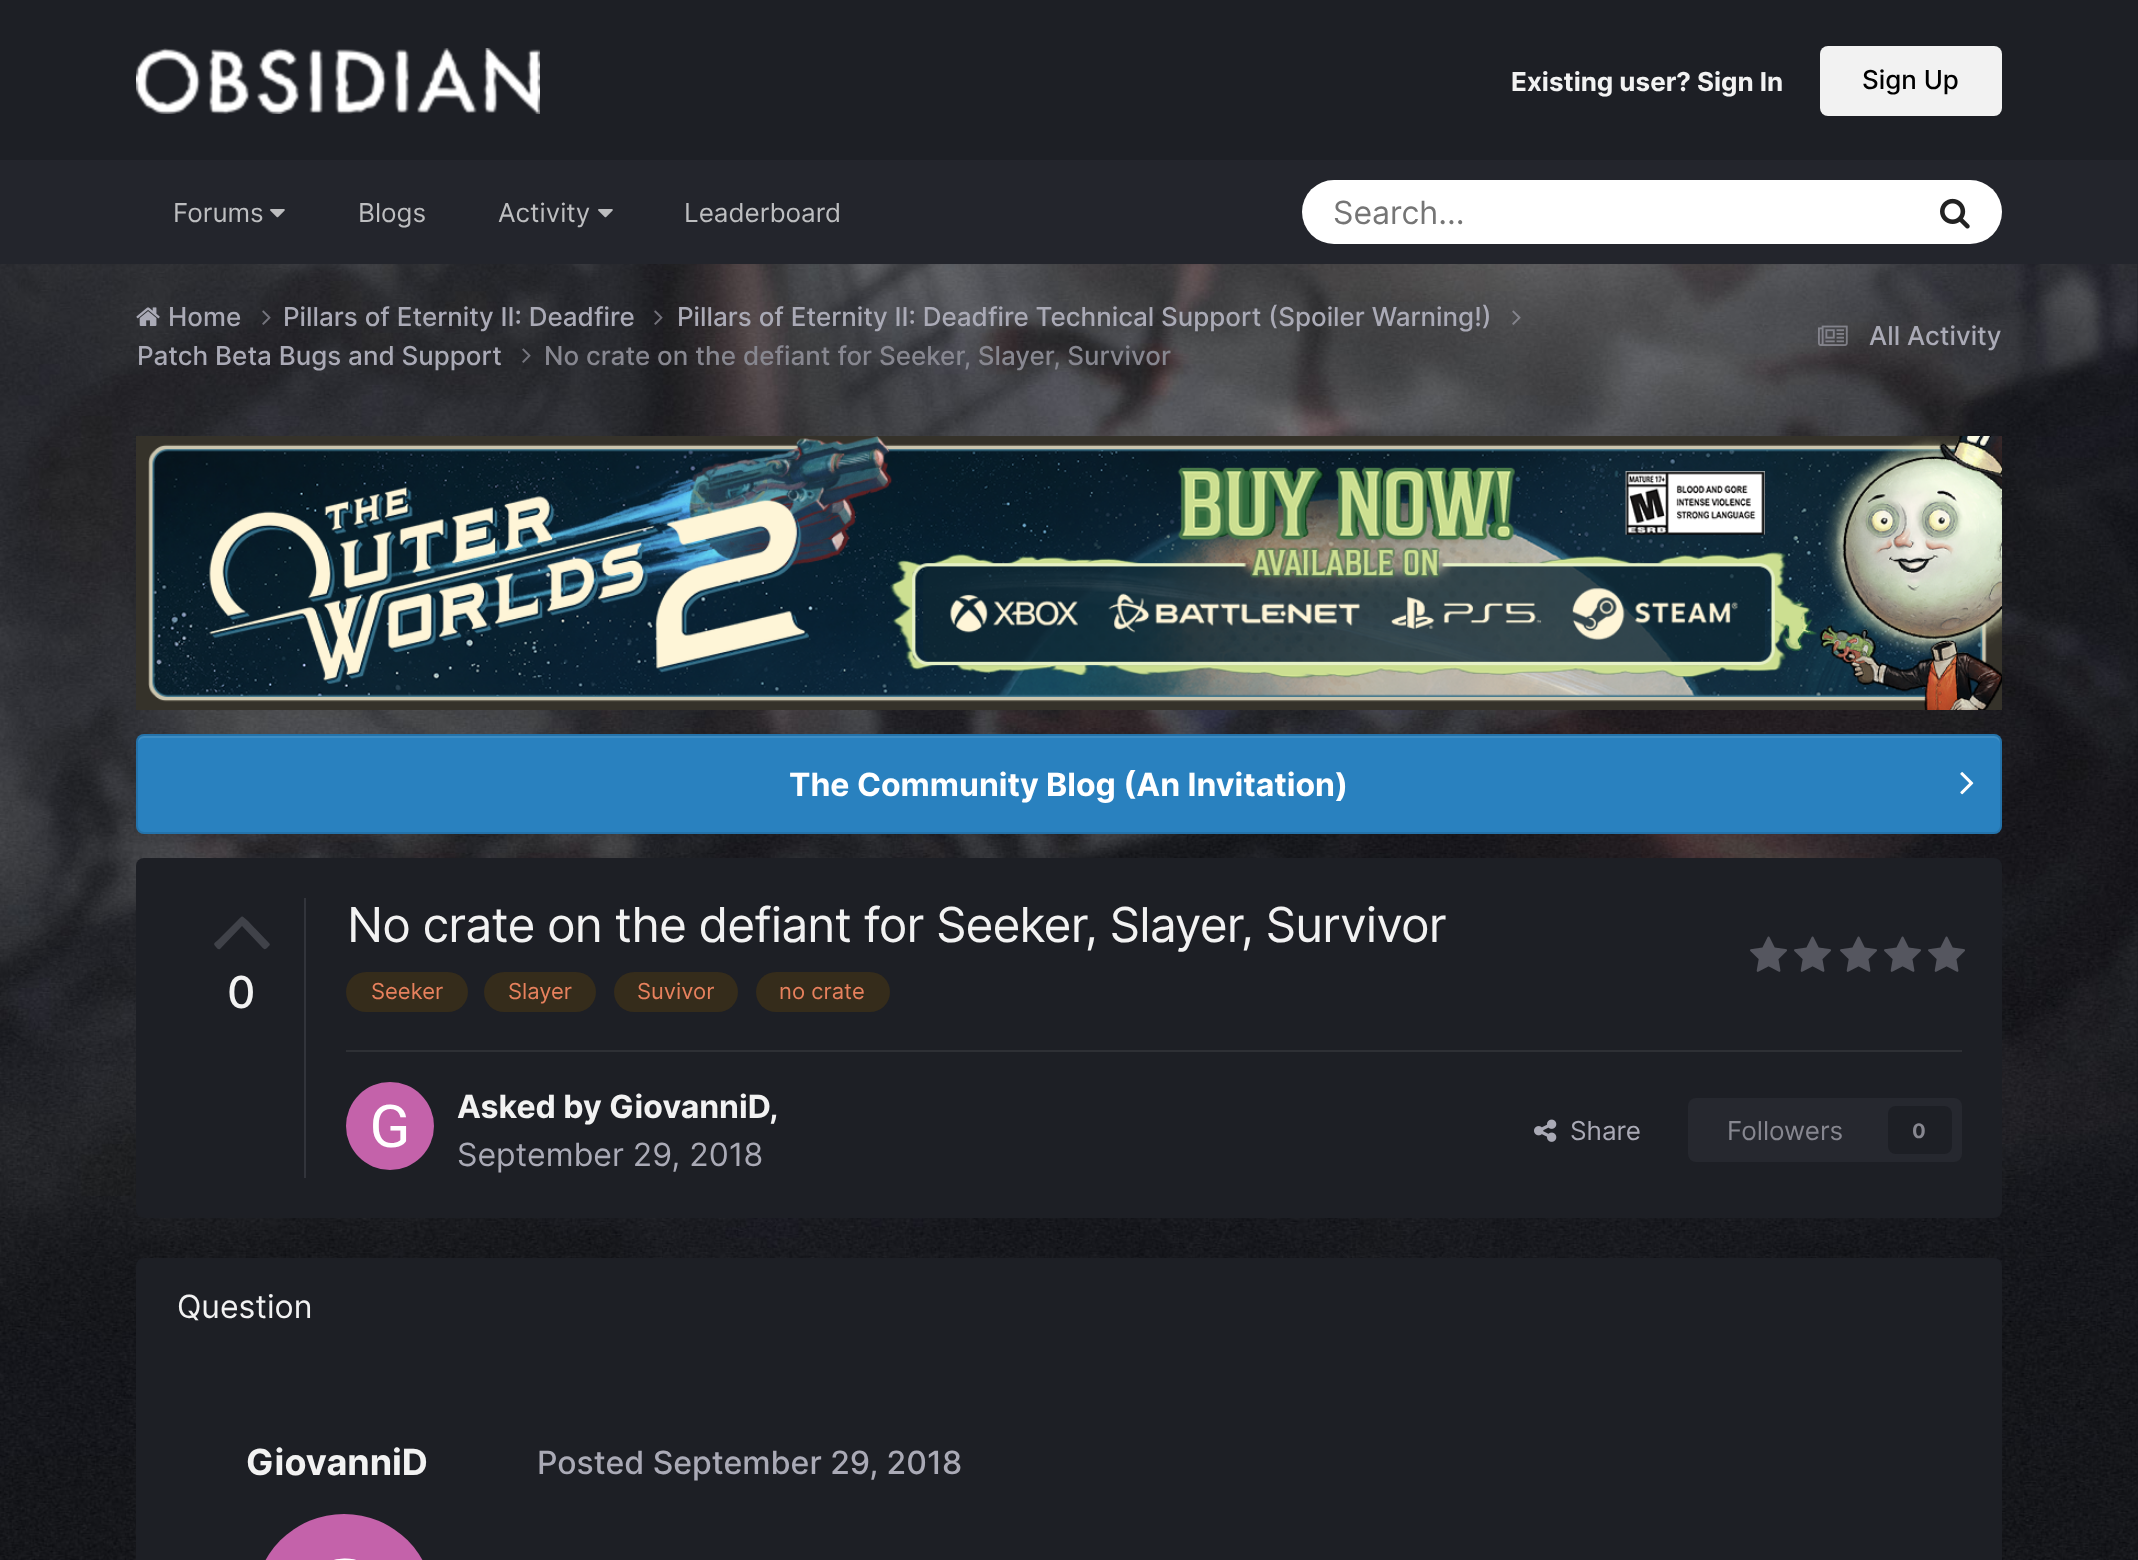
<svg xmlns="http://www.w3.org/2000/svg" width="2138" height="1560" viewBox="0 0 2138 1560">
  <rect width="100%" height="100%" fill="#17191f"/>
  <path d="M0 0h2138v160H0z" fill="#1d1f25"/>
  <image x="136" y="48" width="404" height="66" href="img/1.png"/>
  <rect x="1820" y="46" width="182" height="70" rx="8" fill="#f2f2f2"/>
  <path d="M0 160h2138v104H0z" fill="#23252c"/>
  <image x="270" y="209" width="15" height="9" href="img/2.png"/>
  <image x="598" y="209" width="15" height="9" href="img/2.png"/>
  <rect x="1302" y="180" width="700" height="64" rx="32" fill="#fff"/>
  <image x="1940" y="198" width="30" height="31" href="img/3.png"/>
  <image x="0" y="264" width="2138" height="1296" href="img/4.png"/>
  <image x="136" y="307" width="24" height="19" href="img/5.png"/>
  <image x="262" y="310" width="9" height="15" href="img/6.png"/>
  <image x="654" y="310" width="9" height="15" href="img/7.png"/>
  <image x="1512" y="310" width="9" height="15" href="img/8.png"/>
  <image x="522" y="348" width="9" height="15" href="img/9.png"/>
  <image x="1818" y="325" width="30" height="21" href="img/10.png"/>
  <image x="136" y="436" width="1866" height="274" href="img/11.png"/>
  <rect x="136" y="734" width="1866" height="100" rx="8" fill="#2981bf"/>
  <path d="M144 738H1994C1997 738 2000 741 2000 744C2000 740 1999 736 1994 736H144C139 736 138 740 138 744C138 741 141 738 144 738Z" fill="#3e8ec5"/>
  <rect x="137" y="735" width="1864" height="98" rx="7" fill="none" stroke="#0000001a" stroke-width="2"/>
  <image x="1960" y="772" width="14" height="23" href="img/12.png"/>
  <rect x="136" y="858" width="1866" height="360" rx="8" fill="#1d1f25"/>
  <path d="M304 898h2v280H304z" fill="#32343b"/>
  <path d="M269 943C271 945 269 946 268 947C264 951 264 949 260 945L242 926L220 949C218 950 217 948 216 947C212 943 215 943 219 939L237 921C243 915 241 915 248 921Z" fill="#404249"/>
  <rect x="346" y="972" width="122" height="40" rx="20" fill="#352c1b"/>
  <rect x="484" y="972" width="112" height="40" rx="20" fill="#352c1b"/>
  <rect x="614" y="972" width="124" height="40" rx="20" fill="#352c1b"/>
  <rect x="756" y="972" width="134" height="40" rx="20" fill="#352c1b"/>
  <image x="1750" y="936" width="37" height="36" href="img/13.png"/>
  <image x="1794" y="936" width="37" height="36" href="img/13.png"/>
  <image x="1840" y="936" width="37" height="36" href="img/13.png"/>
  <image x="1884" y="936" width="37" height="36" href="img/13.png"/>
  <image x="1928" y="936" width="37" height="36" href="img/13.png"/>
  <path d="M346 1050h1616v2H346z" fill="#2e3035"/>
  <image x="346" y="1082" width="88" height="88" href="img/14.png"/>
  <image x="1534" y="1119" width="23" height="23" href="img/15.png"/>
  <rect x="1688" y="1098" width="274" height="64" rx="8" fill="#26282f"/>
  <rect x="1888" y="1106" width="64" height="48" rx="8" fill="#1d1f25"/>
  <rect x="136" y="1258" width="1866" height="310" rx="8" fill="#1d1f25"/>
  <image x="265" y="1514" width="158" height="46" href="img/16.png"/>
  <text x="1511" y="91" font-family="Inter" font-size="26" font-weight="bold" fill="#f2f2f2">Existing user? Sign In</text>
  <text x="1862" y="89" font-family="Inter" font-size="26" font-weight="500" fill="#000">Sign Up</text>
  <g font-family="Inter" font-size="26" fill="#bdbec0">
    <text x="173" y="222">Forums</text>
    <text x="358" y="222">Blogs</text>
    <text x="498" y="222">Activity</text>
    <text x="684" y="222">Leaderboard</text>
  </g>
  <text x="1333" y="224" font-family="Inter" font-size="32" fill="#757575">Search...</text>
  <g font-family="Inter" font-size="26" font-weight="500" fill="#aaaab6">
    <text x="168" y="326">Home</text>
    <text x="283" y="326">Pillars of Eternity II: Deadfire</text>
    <text x="677" y="326">Pillars of Eternity II: Deadfire Technical Support (Spoiler Warning!)</text>
    <text x="137" y="365">Patch Beta Bugs and Support</text>
  </g>
  <text x="544" y="365" font-family="Inter" font-size="26" font-weight="500" fill="#878790">No crate on the defiant for Seeker, Slayer, Survivor</text>
  <text x="1869" y="345" font-family="Inter" font-size="26" font-weight="500" fill="#aaaab6">All Activity</text>
  <text x="789" y="796" font-family="Inter" font-size="32" font-weight="bold" fill="#fff">The Community Blog (An Invitation)</text>
  <text x="227" y="1008" font-family="Inter" font-size="44" font-weight="500" fill="#f2f2f2">0</text>
  <text x="347" y="942" font-family="Inter" font-size="48" letter-spacing="-0.95" fill="#f2f2f2">No crate on the defiant for Seeker, Slayer, Survivor</text>
  <g font-family="Inter" font-size="22" fill="#e7815d">
    <text x="371" y="999">Seeker</text>
    <text x="508" y="999">Slayer</text>
    <text x="637" y="999">Suvivor</text>
    <text x="779" y="999">no crate</text>
  </g>
  <g font-family="Inter" font-size="32" font-weight="bold" fill="#f2f2f2">
    <text x="457" y="1118">Asked by GiovanniD</text>
    <text x="769" y="1118">,</text>
  </g>
  <text x="457" y="1166" font-family="Inter" font-size="32" fill="#aaaab6">September 29, 2018</text>
  <text x="1570" y="1140" font-family="Inter" font-size="26" fill="#aaaab6">Share</text>
  <text x="1727" y="1140" font-family="Inter" font-size="26" fill="#878790">Followers</text>
  <text x="1912" y="1138" font-family="Inter" font-size="20" font-weight="bold" fill="#878790">0</text>
  <text x="177" y="1318" font-family="Inter" font-size="32" fill="#f2f2f2">Question</text>
  <text x="246" y="1475" font-family="Inter" font-size="36" font-weight="bold" fill="#f2f2f2">GiovanniD</text>
  <text x="537" y="1474" font-family="Inter" font-size="32" font-weight="500" fill="#aaaab6">Posted September 29, 2018</text>
</svg>
